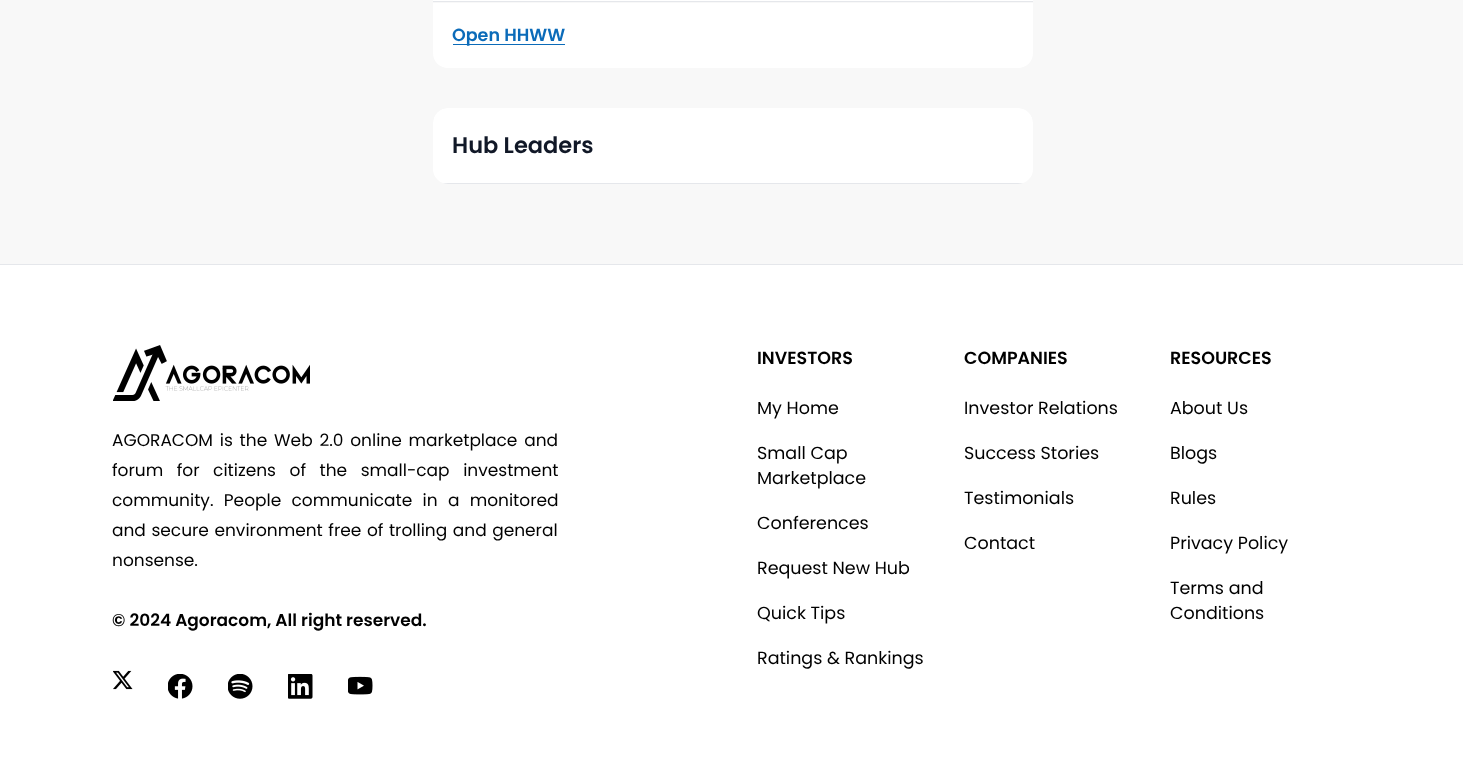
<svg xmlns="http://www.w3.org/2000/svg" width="1463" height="778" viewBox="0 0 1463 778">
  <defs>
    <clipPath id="clip1"><rect x="433" y="108" width="600" height="76" rx="15"/></clipPath>
  </defs>
  <rect width="100%" height="100%" fill="#f8f8f8"/>
  <path d="M433 0h600v1H433z" fill="#fff"/>
  <path d="M433 1h600v1H433z" fill="#e5e7eb"/>
  <path d="M433 3H1033V53C1033 61.5 1026.5 68 1018 68H448C439.5 68 433 61.5 433 53Z" fill="#fff"/>
  <path d="M453 44h112v1H453z" fill="#0b6bb9"/>
  <g clip-path="url(#clip1)">
    <path d="M448 108H1018C1026.5 108 1033 114.5 1033 123V183H433V123C433 114.5 439.5 108 448 108Z" fill="#fff"/>
    <path d="M443 183h580v1H443z" fill="#e5e7eb"/>
  </g>
  <path d="M0 265h1463v513H0z" fill="#fff"/>
  <path d="M0 264h1463v1H0z" fill="#e5e7eb"/>
  <image x="113" y="345" width="197" height="56" href="img/1.png"/>
  <image x="113" y="670" width="20" height="20" href="img/2.png"/>
  <image x="168" y="674" width="25" height="25" href="img/3.png"/>
  <image x="228" y="674" width="25" height="25" href="img/4.png"/>
  <image x="288" y="674" width="25" height="25" href="img/5.png"/>
  <image x="348" y="676" width="25" height="19" href="img/6.png"/>
  <text x="452" y="41" font-family="Poppins" font-size="17.5" font-weight="600" fill="#0b6bb9">Open HHWW</text>
  <text x="452" y="153" font-family="Poppins" font-size="22.5" font-weight="600" fill="#111827">Hub Leaders</text>
  <g font-family="Poppins" font-size="17" fill="#000">
    <text x="112" y="446" word-spacing="2.25">AGORACOM is the Web 2.0 online marketplace and</text>
    <text x="112" y="476" word-spacing="9">forum for citizens of the small-cap investment</text>
    <text x="112" y="506" word-spacing="5.75">community. People communicate in a monitored</text>
    <text x="112" y="536" word-spacing="1">and secure environment free of trolling and general</text>
    <text x="112" y="566">nonsense.</text>
  </g>
  <text x="112" y="626" font-family="Poppins" font-size="17" font-weight="600" fill="#000">© 2024 Agoracom, All right reserved.</text>
  <text x="757" y="364" font-family="Poppins" font-size="17.5" font-weight="600" fill="#000">INVESTORS</text>
  <g font-family="Poppins" font-size="17.5" fill="#000">
    <text x="757" y="414">My Home</text>
    <text x="757" y="459">Small Cap</text>
    <text x="757" y="484">Marketplace</text>
    <text x="757" y="529">Conferences</text>
    <text x="757" y="574">Request New Hub</text>
    <text x="757" y="619">Quick Tips</text>
    <text x="757" y="664">Ratings &amp; Rankings</text>
  </g>
  <text x="964" y="364" font-family="Poppins" font-size="17.5" font-weight="600" fill="#000">COMPANIES</text>
  <g font-family="Poppins" font-size="17.5" fill="#000">
    <text x="964" y="414">Investor Relations</text>
    <text x="964" y="459">Success Stories</text>
    <text x="964" y="504">Testimonials</text>
    <text x="964" y="549">Contact</text>
  </g>
  <text x="1170" y="364" font-family="Poppins" font-size="17.5" font-weight="600" fill="#000">RESOURCES</text>
  <g font-family="Poppins" font-size="17.5" fill="#000">
    <text x="1170" y="414">About Us</text>
    <text x="1170" y="459">Blogs</text>
    <text x="1170" y="504">Rules</text>
    <text x="1170" y="549">Privacy Policy</text>
    <text x="1170" y="594">Terms and</text>
    <text x="1170" y="619">Conditions</text>
  </g>
</svg>
